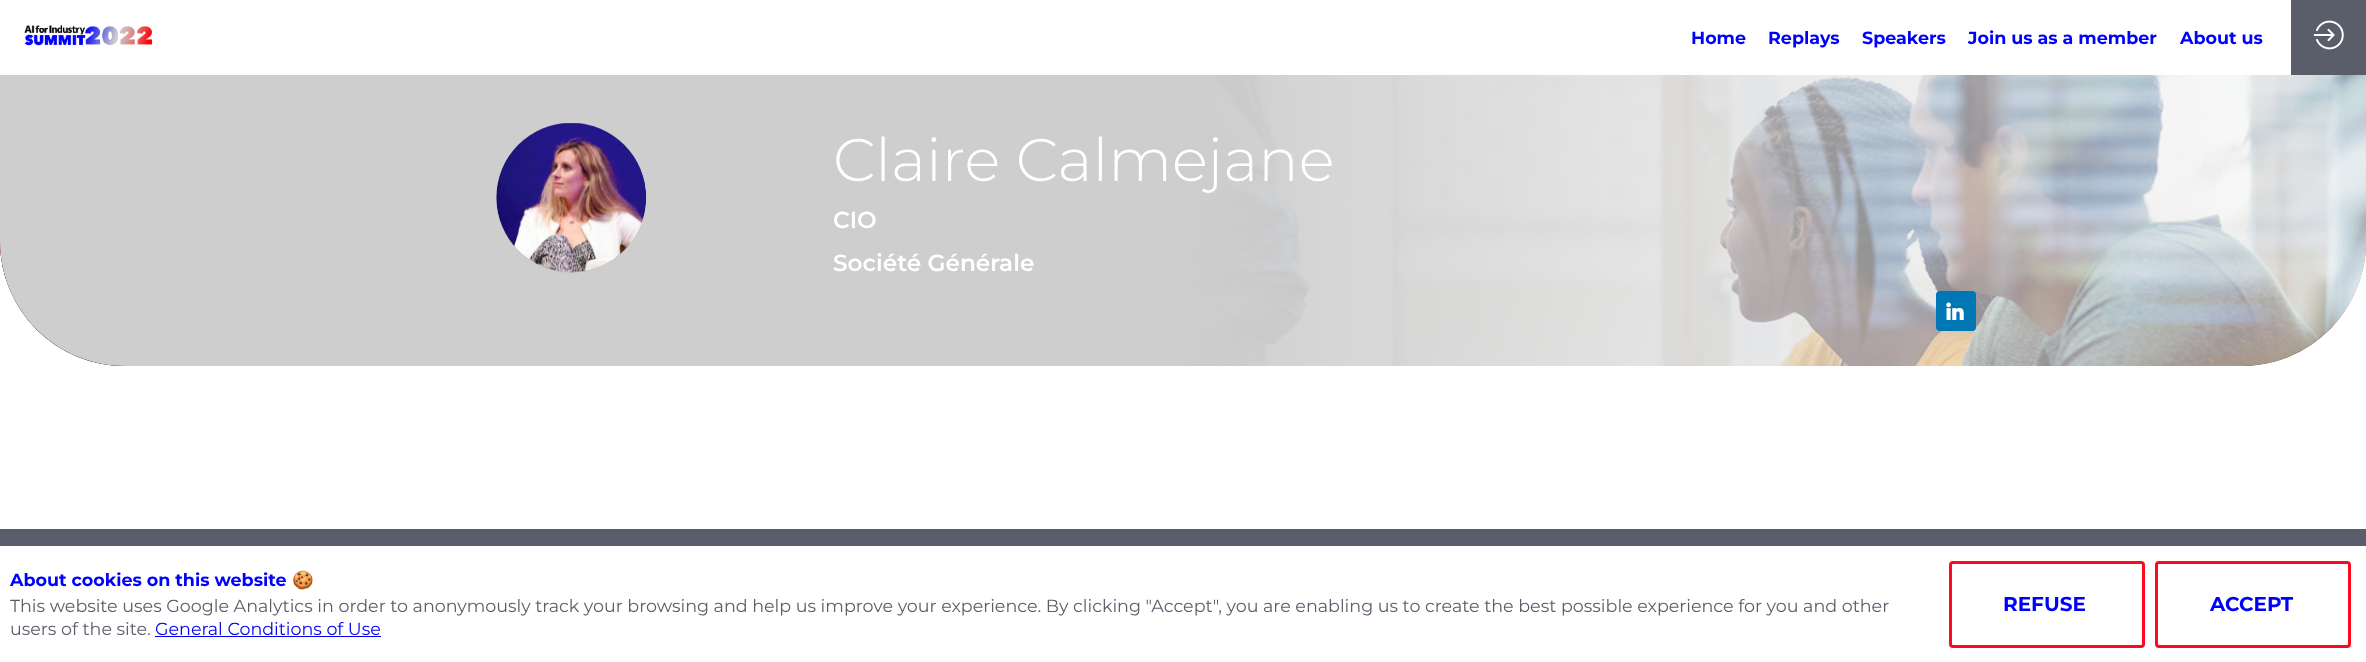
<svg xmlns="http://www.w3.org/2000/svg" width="2366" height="662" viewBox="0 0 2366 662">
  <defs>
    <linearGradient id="g1" gradientUnits="userSpaceOnUse" x1="0" y1="221" x2="2366" y2="221"><stop offset="0.5" stop-color="#cecece"/><stop offset="1" stop-color="#efefef" stop-opacity="0.3"/></linearGradient>
  </defs>
  <rect width="100%" height="100%" fill="#fff"/>
  <image x="24" y="25" width="129" height="21" href="img/1.png"/>
  <path d="M2295 4h67v67H2295z" fill="#5a5e6b" stroke="#5a5e6b" stroke-width="8"/>
  <image x="2313" y="20" width="31" height="30" href="img/2.png"/>
  <path d="M0 75H2366V241C2366 310 2310 366 2241 366H125C56 366 0 310 0 241Z" fill="#f00"/>
  <image x="0" y="75" width="2366" height="291" href="img/3.png"/>
  <path d="M0 75H2366V241C2366 310 2310 366 2241 366H125C56 366 0 310 0 241Z" fill="url(#g1)"/>
  <circle cx="571" cy="198" r="75" fill="#c7c7c7"/>
  <image x="496" y="123" width="151" height="150" href="img/4.png"/>
  <rect x="1936" y="291" width="40" height="40" rx="4" fill="#0077b5"/>
  <image x="1946" y="302" width="18" height="18" href="img/5.png"/>
  <path d="M0 529h2366v17H0z" fill="#5a5e6b"/>
  <path d="M155 636h226v1H155z" fill="#00e"/>
  <rect x="1950.5" y="562.5" width="193" height="84" rx="2.5" fill="none" stroke="#ff0921" stroke-width="3"/>
  <rect x="2156.5" y="562.5" width="193" height="84" rx="2.5" fill="none" stroke="#ff0921" stroke-width="3"/>
  <g font-family="Montserrat" font-size="17.5" font-weight="bold" fill="#00f">
    <text x="1691" y="44">Home</text>
    <text x="1768" y="44">Replays</text>
    <text x="1862" y="44">Speakers</text>
    <text x="1968" y="44">Join us as a member</text>
    <text x="2180" y="44">About us</text>
  </g>
  <text x="833" y="181" font-family="Montserrat" font-size="60" font-weight="300" fill="#fff">Claire Calmejane</text>
  <g font-family="Montserrat" font-size="23.25" font-weight="600" fill="#fff">
    <text x="833" y="228">CIO</text>
    <text x="833" y="271">Société Générale</text>
  </g>
  <text x="10" y="586" font-family="Montserrat" font-size="17.5" font-weight="bold" fill="#00f">About cookies on this website</text>
  <text x="292" y="586" font-family="Noto Color Emoji" font-size="17.5" font-weight="bold" fill="#00f">🍪</text>
  <g font-family="Montserrat" font-size="17.5" fill="#5a5e6b">
    <text x="10" y="612">This website uses Google Analytics in order to anonymously track your browsing and help us improve your experience. By clicking "Accept", you are enabling us to create the best possible experience for you and other</text>
    <text x="10" y="635">users of the site.</text>
  </g>
  <text x="155" y="635" font-family="Montserrat" font-size="17.5" fill="#00e">General Conditions of Use</text>
  <g font-family="Montserrat" font-size="20" font-weight="bold" fill="#00f">
    <text x="2003" y="611">REFUSE</text>
    <text x="2210" y="611">ACCEPT</text>
  </g>
</svg>
